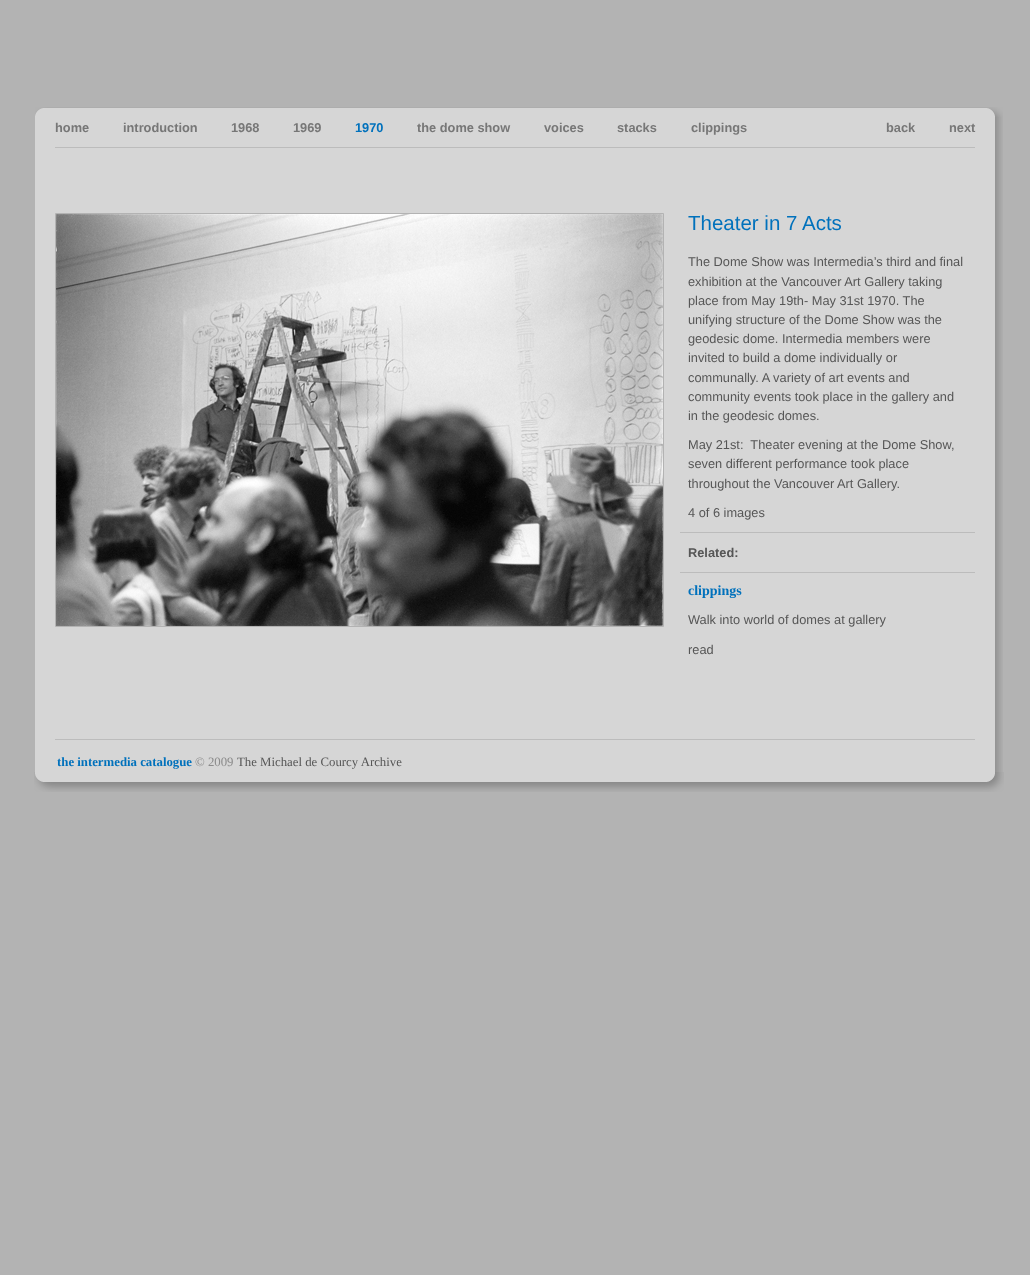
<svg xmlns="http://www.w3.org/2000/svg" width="1030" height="1275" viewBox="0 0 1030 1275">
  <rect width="100%" height="100%" fill="#b3b3b3"/>
  <image x="35" y="107" width="968" height="11" href="img/1.png"/>
  <image x="35" y="118" width="968" height="654" href="img/2.png"/>
  <path d="M55 147h920v1H55z" fill="#bcbcbc"/>
  <path d="M55.5 213.5h608v413H55.5z" fill="none" stroke="#b3b3b3"/>
  <image x="56" y="214" width="607" height="412" href="img/3.png"/>
  <path d="M680 532h295v1H680z" fill="#bcbcbc"/>
  <path d="M680 572h295v1H680z" fill="#bcbcbc"/>
  <path d="M55 739h920v1H55z" fill="#bcbcbc"/>
  <image x="34" y="772" width="970" height="20" href="img/4.png"/>
  <g font-family="Liberation Sans" font-size="12.8" font-weight="bold" fill="#777">
    <text x="55" y="132">home</text>
    <text x="123" y="132">introduction</text>
    <text x="231" y="132">1968</text>
    <text x="293" y="132">1969</text>
  </g>
  <text x="355" y="132" font-family="Liberation Sans" font-size="12.8" font-weight="bold" fill="#0071bc">1970</text>
  <g font-family="Liberation Sans" font-size="12.8" font-weight="bold" fill="#777">
    <text x="417" y="132">the dome show</text>
    <text x="544" y="132">voices</text>
    <text x="617" y="132">stacks</text>
    <text x="691" y="132">clippings</text>
    <text x="886" y="132">back</text>
    <text x="949" y="132">next</text>
  </g>
  <text x="688" y="230" font-family="Liberation Sans" font-size="20.5" fill="#0071bc">Theater in 7 Acts</text>
  <g font-family="Liberation Sans" font-size="12.8" fill="#565656">
    <text x="688" y="266">The Dome Show was Intermedia’s third and final</text>
    <text x="688" y="286">exhibition at the Vancouver Art Gallery taking</text>
    <text x="688" y="305">place from May 19th- May 31st 1970. The</text>
    <text x="688" y="324">unifying structure of the Dome Show was the</text>
    <text x="688" y="343">geodesic dome. Intermedia members were</text>
    <text x="688" y="362">invited to build a dome individually or</text>
    <text x="688" y="382">communally. A variety of art events and</text>
    <text x="688" y="401">community events took place in the gallery and</text>
    <text x="688" y="420">in the geodesic domes.</text>
    <text x="688" y="449" xml:space="preserve">May 21st:  Theater evening at the Dome Show,</text>
    <text x="688" y="468">seven different performance took place</text>
    <text x="688" y="488">throughout the Vancouver</text>
    <text x="837" y="488">Art Gallery.</text>
    <text x="688" y="517">4 of 6 images</text>
  </g>
  <text x="688" y="557" font-family="Liberation Sans" font-size="12.8" font-weight="bold" fill="#565656">Related:</text>
  <text x="688" y="595" font-family="Liberation Serif" font-size="14" font-weight="bold" fill="#0071bc">clippings</text>
  <g font-family="Liberation Sans" font-size="12.8" fill="#565656">
    <text x="688" y="624">Walk into world of domes at gallery</text>
    <text x="688" y="654">read</text>
  </g>
  <text x="57" y="766" font-family="Liberation Serif" font-size="12.8" font-weight="bold" fill="#0071bc">the intermedia catalogue</text>
  <text x="195" y="766" font-family="Liberation Serif" font-size="12.8" fill="#8b8b8b">© 2009</text>
  <text x="237" y="766" font-family="Liberation Serif" font-size="12.8" fill="#565656">The Michael de Courcy Archive</text>
</svg>
